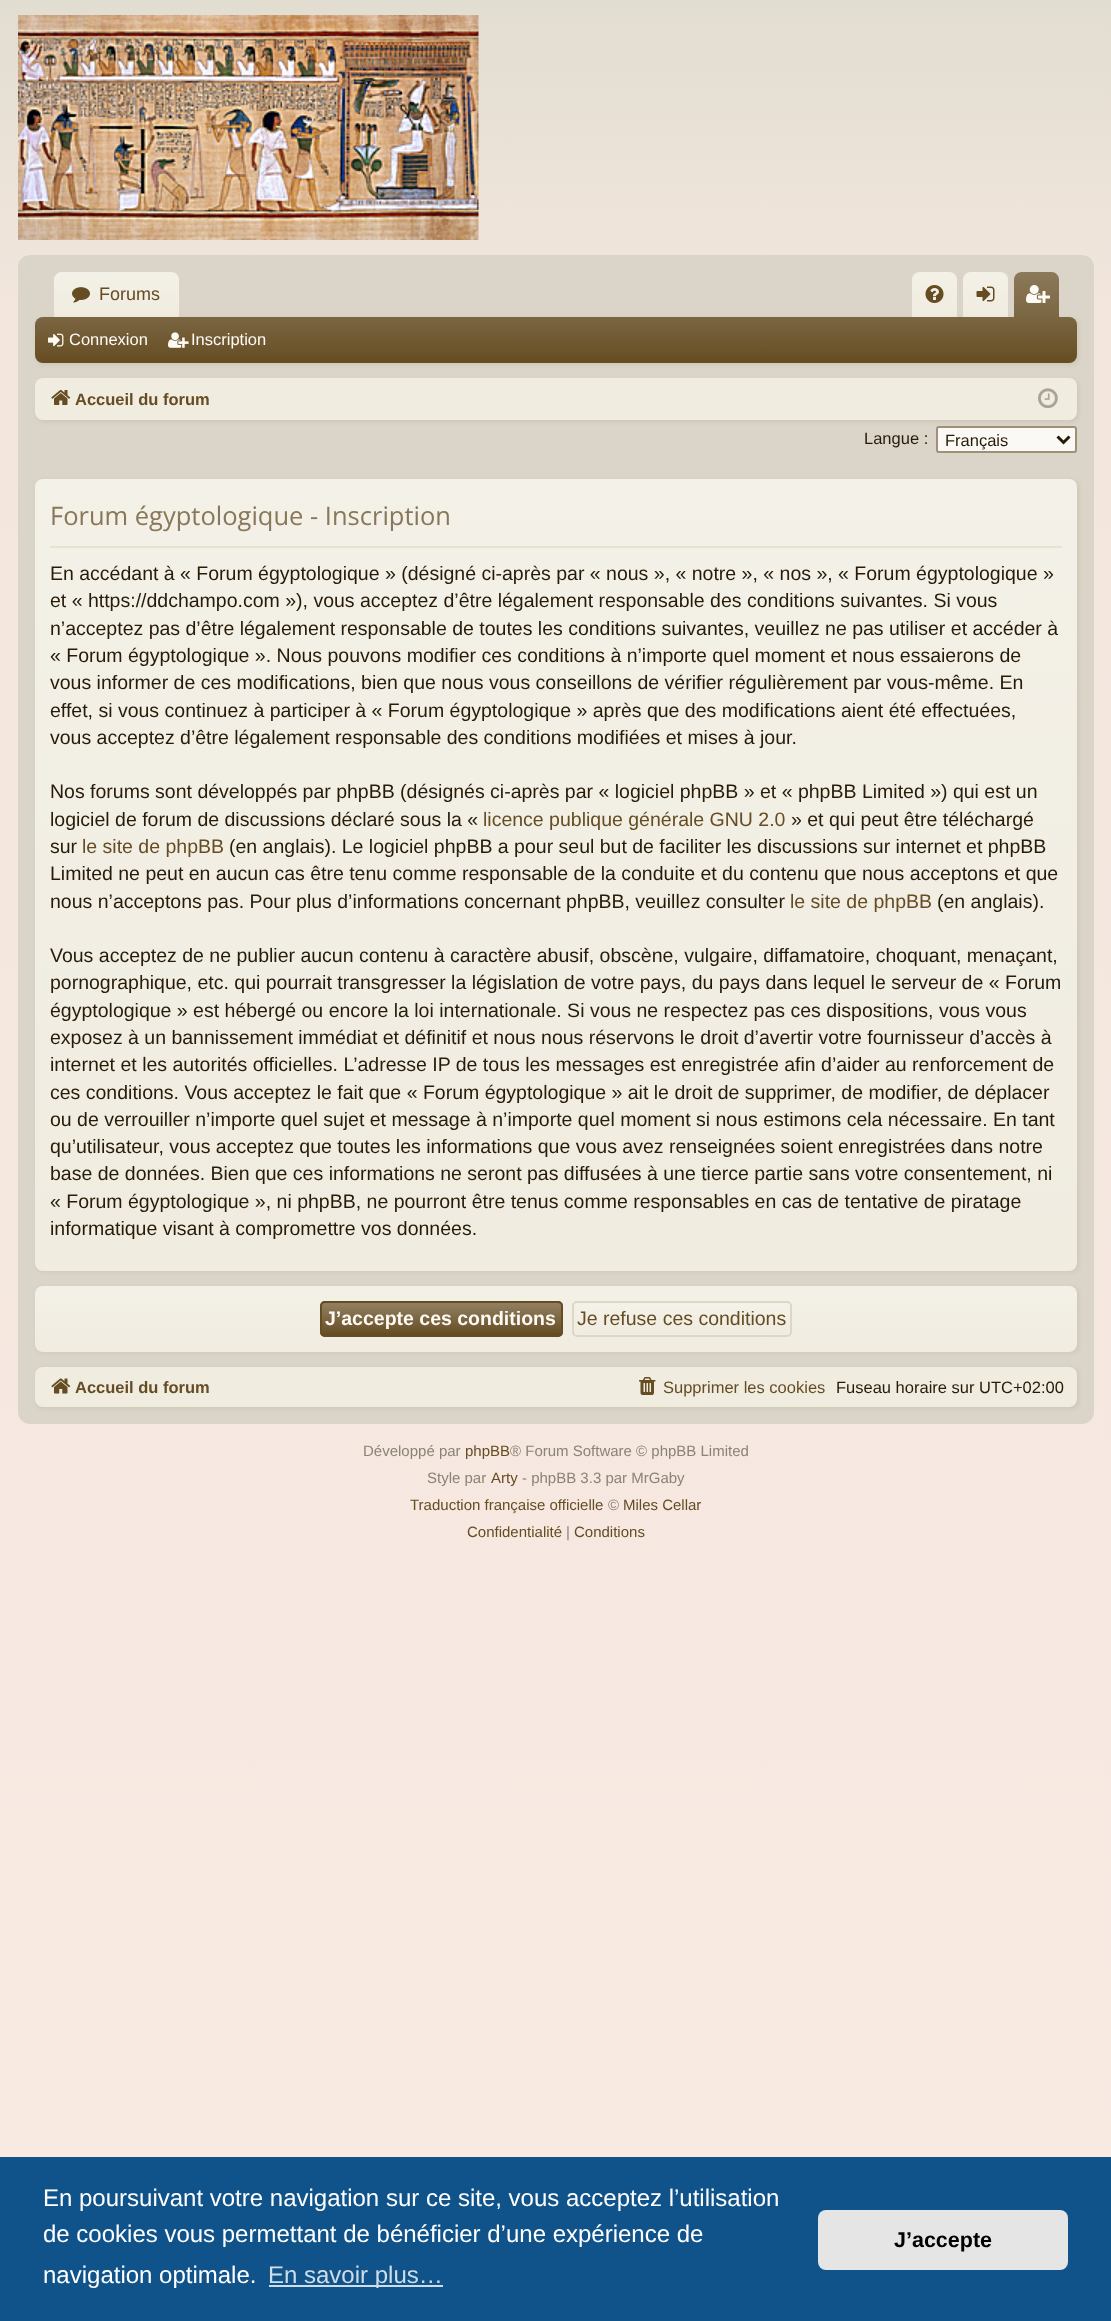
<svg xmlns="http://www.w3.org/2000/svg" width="1111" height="2321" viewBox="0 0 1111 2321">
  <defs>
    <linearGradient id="g1" gradientUnits="userSpaceOnUse" x1="556" y1="0" x2="556" y2="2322"><stop offset="0" stop-color="#e2ddd1"/><stop offset="0.13" stop-color="#f2e6dd"/><stop offset="1" stop-color="#f9eae2"/></linearGradient>
    <linearGradient id="g2" gradientUnits="userSpaceOnUse" x1="116" y1="272" x2="116" y2="317"><stop offset="0" stop-color="#fff" stop-opacity="0.25"/><stop offset="1" stop-color="#fff" stop-opacity="0"/></linearGradient>
    <linearGradient id="g3" gradientUnits="userSpaceOnUse" x1="935" y1="272" x2="935" y2="317"><stop offset="0" stop-color="#fff" stop-opacity="0.25"/><stop offset="1" stop-color="#fff" stop-opacity="0"/></linearGradient>
    <linearGradient id="g4" gradientUnits="userSpaceOnUse" x1="986" y1="272" x2="986" y2="317"><stop offset="0" stop-color="#fff" stop-opacity="0.25"/><stop offset="1" stop-color="#fff" stop-opacity="0"/></linearGradient>
    <linearGradient id="g5" gradientUnits="userSpaceOnUse" x1="1037" y1="272" x2="1037" y2="317"><stop offset="0" stop-color="#fff" stop-opacity="0.25"/><stop offset="1" stop-color="#fff" stop-opacity="0.15"/></linearGradient>
    <linearGradient id="g6" gradientUnits="userSpaceOnUse" x1="556" y1="316" x2="556" y2="363"><stop offset="0" stop-color="#fff" stop-opacity="0.15"/><stop offset="1" stop-color="#fff" stop-opacity="0"/></linearGradient>
    <linearGradient id="g7" gradientUnits="userSpaceOnUse" x1="556" y1="478" x2="556" y2="1271"><stop offset="0" stop-color="#fff" stop-opacity="0.25"/><stop offset="1" stop-color="#fff" stop-opacity="0"/></linearGradient>
    <linearGradient id="g8" gradientUnits="userSpaceOnUse" x1="556" y1="1286" x2="556" y2="1352"><stop offset="0" stop-color="#fff" stop-opacity="0.25"/><stop offset="1" stop-color="#fff" stop-opacity="0"/></linearGradient>
    <clipPath id="clip1"><rect x="320" y="1301" width="243" height="36" rx="5"/></clipPath>
    <linearGradient id="g9" gradientUnits="userSpaceOnUse" x1="441" y1="1302" x2="441" y2="1335"><stop offset="0" stop-color="#fff" stop-opacity="0.3"/><stop offset="1" stop-color="#fff" stop-opacity="0"/></linearGradient>
    <clipPath id="clip2"><rect x="572" y="1301" width="220" height="36" rx="5"/></clipPath>
    <linearGradient id="g10" gradientUnits="userSpaceOnUse" x1="682" y1="1302" x2="682" y2="1335"><stop offset="0" stop-color="#fff" stop-opacity="0.3"/><stop offset="1" stop-color="#fff" stop-opacity="0"/></linearGradient>
  </defs>
  <rect width="100%" height="100%" fill="#fff"/>
  <path d="M0 0h1111v2157H0z" fill="url(#g1)"/>
  <image x="18" y="15" width="461" height="225" href="img/1.png"/>
  <rect x="19" y="256" width="1074" height="1167" rx="11" fill="#dbd5c9" stroke="#dbd5c9" stroke-width="2"/>
  <path d="M62 272H171C175.5 272 179 275.5 179 280V317H54V280C54 275.5 57.5 272 62 272Z" fill="#f0ece0"/>
  <path d="M62 272H171C175.5 272 179 275.5 179 280V317H54V280C54 275.5 57.5 272 62 272Z" fill="url(#g2)"/>
  <image x="72" y="287" width="18" height="16" href="img/2.png"/>
  <path d="M920 272H949C953.5 272 957 275.5 957 280V317H912V280C912 275.5 915.5 272 920 272Z" fill="#f0ece0"/>
  <path d="M920 272H949C953.5 272 957 275.5 957 280V317H912V280C912 275.5 915.5 272 920 272Z" fill="url(#g3)"/>
  <image x="925" y="285" width="19" height="18" href="img/3.png"/>
  <path d="M971 272H1000C1004.5 272 1008 275.5 1008 280V317H963V280C963 275.5 966.5 272 971 272Z" fill="#f0ece0"/>
  <path d="M971 272H1000C1004.5 272 1008 275.5 1008 280V317H963V280C963 275.5 966.5 272 971 272Z" fill="url(#g4)"/>
  <image x="976" y="286" width="19" height="16" href="img/4.png"/>
  <path d="M1022 272H1051C1055.5 272 1059 275.5 1059 280V317H1014V280C1014 275.5 1017.5 272 1022 272Z" fill="#654c22"/>
  <path d="M1022 272H1051C1055.5 272 1059 275.5 1059 280V317H1014V280C1014 275.5 1017.5 272 1022 272Z" fill="url(#g5)"/>
  <image x="1026" y="285" width="24" height="18" href="img/5.png"/>
  <rect x="36" y="318" width="1043" height="47" rx="8" fill="#654c221a" filter="blur(2px)"/>
  <rect x="35" y="317" width="1042" height="46" rx="8" fill="#654c22"/>
  <rect x="35" y="317" width="1042" height="46" rx="8" fill="url(#g6)"/>
  <path d="M1017 315H1056C1057.5 315 1059 316.5 1059 318H1014C1014 316.5 1015.5 315 1017 315Z" fill="#654c22"/>
  <path d="M1017 315H1056C1057.5 315 1059 316.5 1059 318H1014C1014 316.5 1015.5 315 1017 315Z" fill="#ffffff26"/>
  <image x="48" y="333" width="16" height="14" href="img/6.png"/>
  <image x="168" y="332" width="21" height="16" href="img/7.png"/>
  <rect x="36" y="380" width="1043" height="42" rx="8" fill="#654c221a" filter="blur(2px)"/>
  <rect x="35" y="378" width="1042" height="42" rx="8" fill="#f0ece0"/>
  <image x="51" y="390" width="20" height="15" href="img/8.png"/>
  <image x="1038" y="388" width="20" height="21" href="img/9.png"/>
  <rect x="937" y="427" width="139" height="25" rx="2" fill="#fbf9f6" stroke="#9d8f78" stroke-width="2"/>
  <path d="M1057.5 436.5L1063.5 442.5L1069.5 436.5" fill="none" stroke="#271b08" stroke-width="3"/>
  <rect x="36" y="480" width="1043" height="792" rx="8" fill="#654c221a" filter="blur(2px)"/>
  <rect x="35" y="479" width="1042" height="792" rx="8" fill="#f0ece0"/>
  <rect x="35" y="479" width="1042" height="792" rx="8" fill="url(#g7)"/>
  <path d="M50 546h1012v2H50z" fill="#e8e1cf"/>
  <rect x="36" y="1287" width="1043" height="66" rx="8" fill="#654c221a" filter="blur(2px)"/>
  <rect x="35" y="1286" width="1042" height="66" rx="8" fill="#f0ece0"/>
  <rect x="35" y="1286" width="1042" height="66" rx="8" fill="url(#g8)"/>
  <rect x="320" y="1301" width="243" height="36" rx="5" fill="#654c22"/>
  <g clip-path="url(#clip1)">
    <path d="M320 1302h243v31H320z" fill="url(#g9)"/>
  </g>
  <rect x="321" y="1302" width="241" height="34" rx="4" fill="none" stroke="#654c22" stroke-width="2"/>
  <rect x="572" y="1301" width="220" height="36" rx="5" fill="#f0ece0"/>
  <g clip-path="url(#clip2)">
    <path d="M572 1302h220v31H572z" fill="url(#g10)"/>
  </g>
  <rect x="573" y="1302" width="218" height="34" rx="4" fill="none" stroke="#ddd7c8" stroke-width="2"/>
  <rect x="36" y="1368" width="1043" height="41" rx="8" fill="#654c221a" filter="blur(2px)"/>
  <rect x="35" y="1367" width="1042" height="40" rx="8" fill="#f0ece0"/>
  <image x="51" y="1378" width="20" height="16" href="img/10.png"/>
  <image x="639" y="1377" width="17" height="18" href="img/11.png"/>
  <path d="M0 2157h1111v164H0z" fill="#0f538a"/>
  <path d="M269 2285h174v2H269z" fill="#cfdde8"/>
  <rect x="818" y="2210" width="250" height="60" rx="8" fill="#e5e5e5"/>
  <text x="99" y="300" font-family="Liberation Sans" font-size="18" fill="#654c22">Forums</text>
  <g font-family="Liberation Sans" font-size="16.5" fill="#fefbf5">
    <text x="69" y="345">Connexion</text>
    <text x="191" y="345">Inscription</text>
  </g>
  <text x="75" y="405" font-family="Liberation Sans" font-size="16.5" font-weight="bold" fill="#654c22">Accueil du forum</text>
  <g font-family="Liberation Sans" font-size="16.5" fill="#271b08">
    <text x="864" y="444">Langue :</text>
    <text x="945" y="446">Français</text>
  </g>
  <text x="50" y="525" font-family="Open Sans" font-size="25.5" fill="#897759">Forum égyptologique - Inscription</text>
  <g font-family="Liberation Sans" font-size="19.5" fill="#271b08">
    <text x="50" y="580">En accédant à « Forum égyptologique » (désigné ci-après par « nous », « notre », « nos », « Forum égyptologique »</text>
    <text x="50" y="607">et « https://ddchampo.com »), vous acceptez d’être légalement responsable des conditions suivantes. Si vous</text>
    <text x="50" y="635">n’acceptez pas d’être légalement responsable de toutes les conditions suivantes, veuillez ne pas utiliser et accéder à</text>
    <text x="50" y="662">« Forum égyptologique ». Nous pouvons modifier ces conditions à n’importe quel moment et nous essaierons de</text>
    <text x="50" y="689">vous informer de ces modifications, bien que nous vous conseillons de vérifier régulièrement par vous-même. En</text>
    <text x="50" y="717">effet, si vous continuez à participer à « Forum égyptologique » après que des modifications aient été effectuées,</text>
    <text x="50" y="744">vous acceptez d’être légalement responsable des conditions modifiées et mises à jour.</text>
    <text x="50" y="798">Nos forums sont développés par phpBB (désignés ci-après par « logiciel phpBB » et « phpBB Limited ») qui est un</text>
    <text x="50" y="826">logiciel de forum de discussions déclaré sous la «</text>
  </g>
  <text x="483" y="826" font-family="Liberation Sans" font-size="19.5" fill="#654c22">licence publique générale GNU 2.0</text>
  <g font-family="Liberation Sans" font-size="19.5" fill="#271b08">
    <text x="791" y="826">» et qui peut être téléchargé</text>
    <text x="50" y="853">sur</text>
  </g>
  <text x="82" y="853" font-family="Liberation Sans" font-size="19.5" fill="#654c22">le site de phpBB</text>
  <g font-family="Liberation Sans" font-size="19.5" fill="#271b08">
    <text x="229" y="853">(en anglais). Le logiciel phpBB a pour seul but de faciliter les discussions sur internet et phpBB</text>
    <text x="50" y="880">Limited ne peut en aucun cas être tenu comme responsable de la conduite et du contenu que nous acceptons et que</text>
    <text x="50" y="908">nous n’acceptons pas. Pour plus d’informations concernant phpBB, veuillez consulter</text>
  </g>
  <text x="790" y="908" font-family="Liberation Sans" font-size="19.5" fill="#654c22">le site de phpBB</text>
  <g font-family="Liberation Sans" font-size="19.5" fill="#271b08">
    <text x="937" y="908">(en anglais).</text>
    <text x="50" y="962">Vous acceptez de ne publier aucun contenu à caractère abusif, obscène, vulgaire, diffamatoire, choquant, menaçant,</text>
    <text x="50" y="989">pornographique, etc. qui pourrait transgresser la législation de votre pays, du pays dans lequel le serveur de « Forum</text>
    <text x="50" y="1017">égyptologique » est hébergé ou encore la loi internationale. Si vous ne respectez pas ces dispositions, vous vous</text>
    <text x="50" y="1044">exposez à un bannissement immédiat et définitif et nous nous réservons le droit d’avertir votre fournisseur d’accès à</text>
    <text x="50" y="1071">internet et les autorités officielles. L’adresse IP de tous les messages est enregistrée afin d’aider au renforcement de</text>
    <text x="50" y="1099">ces conditions. Vous acceptez le fait que « Forum égyptologique » ait le droit de supprimer, de modifier, de déplacer</text>
    <text x="50" y="1126">ou de verrouiller n’importe quel sujet et message à n’importe quel moment si nous estimons cela nécessaire. En tant</text>
    <text x="50" y="1153">qu’utilisateur, vous acceptez que toutes les informations que vous avez renseignées soient enregistrées dans notre</text>
    <text x="50" y="1180">base de données. Bien que ces informations ne seront pas diffusées à une tierce partie sans votre consentement, ni</text>
    <text x="50" y="1208">« Forum égyptologique », ni phpBB, ne pourront être tenus comme responsables en cas de tentative de piratage</text>
    <text x="50" y="1235">informatique visant à compromettre vos données.</text>
  </g>
  <text x="325" y="1325" font-family="Liberation Sans" font-size="19.5" font-weight="bold" fill="#fefbf5">J’accepte ces conditions</text>
  <text x="577" y="1325" font-family="Liberation Sans" font-size="19.5" fill="#654c22">Je refuse ces conditions</text>
  <text x="75" y="1393" font-family="Liberation Sans" font-size="16.5" font-weight="bold" fill="#654c22">Accueil du forum</text>
  <text x="663" y="1393" font-family="Liberation Sans" font-size="16.5" fill="#654c22">Supprimer les cookies</text>
  <text x="836" y="1393" font-family="Liberation Sans" font-size="16.5" fill="#271b08">Fuseau horaire sur UTC+02:00</text>
  <text x="363" y="1456" font-family="Liberation Sans" font-size="15" fill="#8b8374">Développé par</text>
  <text x="465" y="1456" font-family="Liberation Sans" font-size="15" fill="#654c22">phpBB</text>
  <g font-family="Liberation Sans" font-size="15" fill="#8b8374">
    <text x="510" y="1456">® Forum Software © phpBB Limited</text>
    <text x="427" y="1483">Style par</text>
  </g>
  <text x="491" y="1483" font-family="Liberation Sans" font-size="15" fill="#654c22">Arty</text>
  <text x="522" y="1483" font-family="Liberation Sans" font-size="15" fill="#8b8374">- phpBB 3.3 par MrGaby</text>
  <text x="410" y="1510" font-family="Liberation Sans" font-size="15" fill="#654c22">Traduction française officielle</text>
  <text x="608" y="1510" font-family="Liberation Sans" font-size="15" fill="#8b8374">©</text>
  <g font-family="Liberation Sans" font-size="15" fill="#654c22">
    <text x="623" y="1510">Miles Cellar</text>
    <text x="467" y="1537">Confidentialité</text>
  </g>
  <text x="566" y="1537" font-family="Liberation Sans" font-size="15" fill="#8b8374">|</text>
  <text x="574" y="1537" font-family="Liberation Sans" font-size="15" fill="#654c22">Conditions</text>
  <g font-family="Liberation Sans" font-size="24" fill="#fff">
    <text x="43" y="2206">En poursuivant votre navigation sur ce site, vous acceptez l’utilisation</text>
    <text x="43" y="2242">de cookies vous permettant de bénéficier d’une expérience de</text>
    <text x="43" y="2283">navigation optimale.</text>
  </g>
  <text x="268" y="2283" font-family="Liberation Sans" font-size="24" fill="#cfdde8">En savoir plus…</text>
  <text x="894" y="2247" font-family="Liberation Sans" font-size="21.5" font-weight="bold" fill="#000">J’accepte</text>
</svg>
